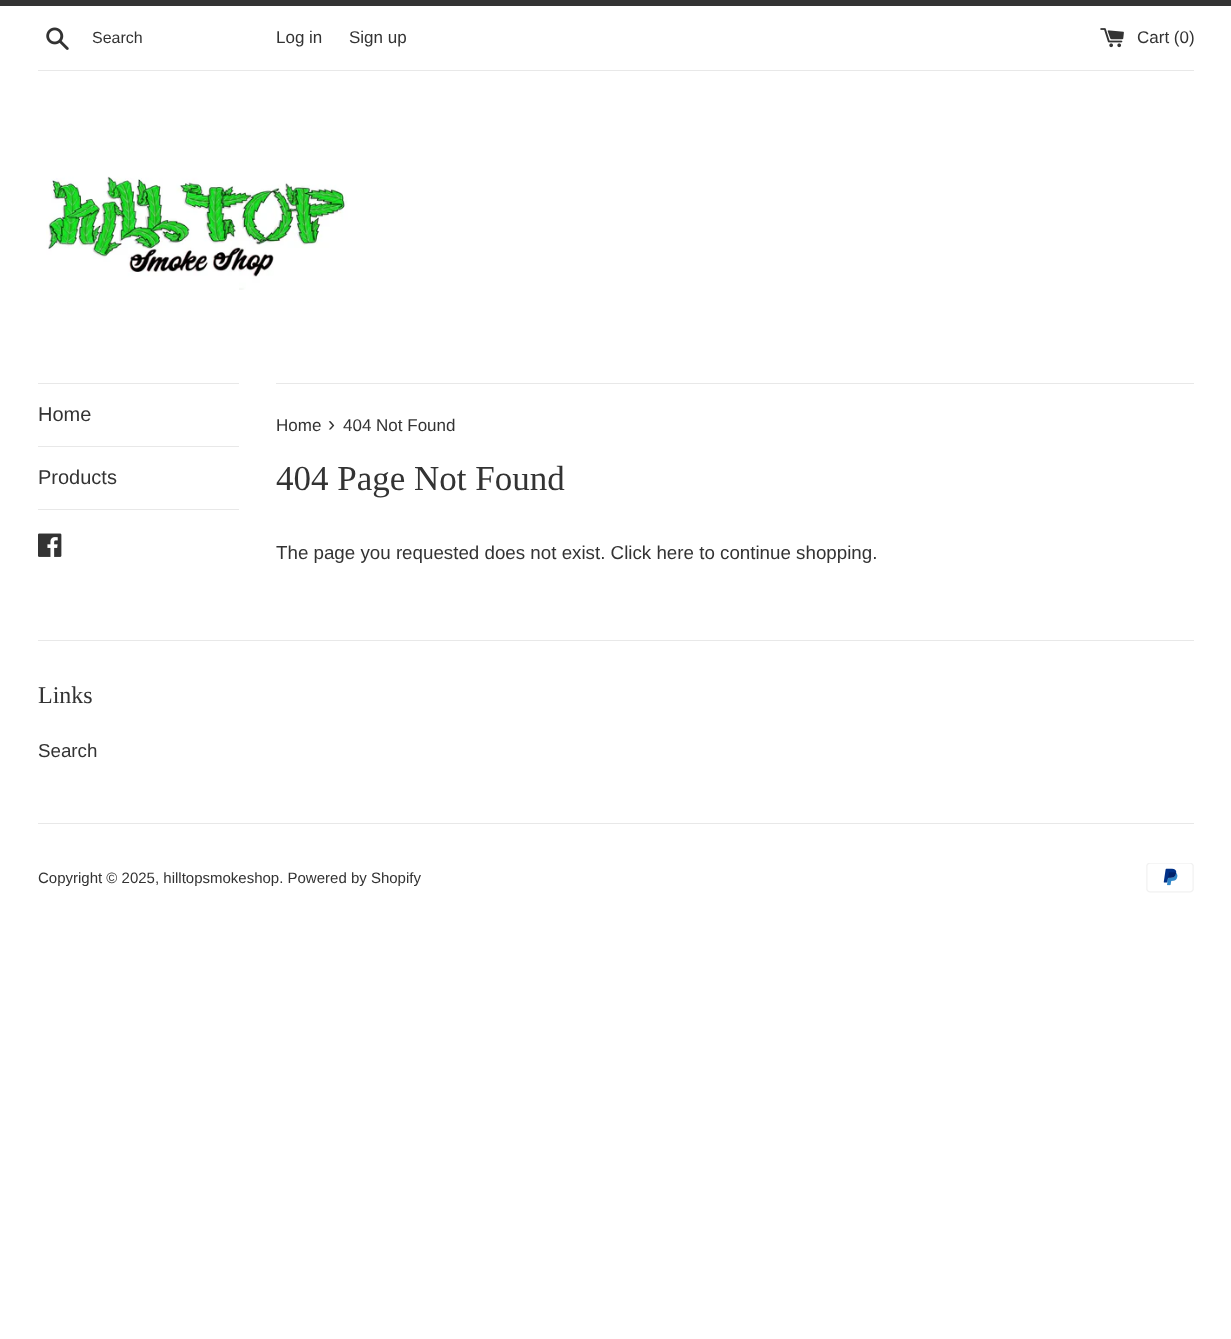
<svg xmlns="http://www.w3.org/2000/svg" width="1231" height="1339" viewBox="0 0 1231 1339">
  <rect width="100%" height="100%" fill="#fff"/>
  <path d="M0 0h1231v6H0z" fill="#333"/>
  <image x="46" y="27" width="23" height="23" href="img/1.png"/>
  <image x="1100" y="28" width="24" height="20" href="img/2.png"/>
  <path d="M38 70h1156v1H38z" fill="#e8e8e8"/>
  <image x="46" y="176" width="302" height="114" href="img/3.png"/>
  <path d="M38 383h201v1H38z" fill="#e8e8e8"/>
  <path d="M38 446h201v1H38z" fill="#e8e8e8"/>
  <path d="M38 509h201v1H38z" fill="#e8e8e8"/>
  <image x="38" y="533" width="24" height="24" href="img/4.png"/>
  <path d="M276 383h918v1H276z" fill="#e8e8e8"/>
  <path d="M38 640h1156v1H38z" fill="#e8e8e8"/>
  <path d="M38 823h1156v1H38z" fill="#e8e8e8"/>
  <image x="1146" y="863" width="48" height="30" href="img/5.png"/>
  <text x="92" y="43" font-family="Liberation Sans" font-size="16" fill="#333">Search</text>
  <g font-family="Liberation Sans" font-size="17" fill="#333">
    <text x="276" y="43">Log in</text>
    <text x="349" y="43">Sign up</text>
    <text x="1137" y="43">Cart (0)</text>
  </g>
  <g font-family="Liberation Sans" font-size="20" fill="#333">
    <text x="38" y="421">Home</text>
    <text x="38" y="484">Products</text>
  </g>
  <text x="276" y="431" font-family="Liberation Sans" font-size="17" fill="#333">Home</text>
  <text x="328" y="431" font-family="Liberation Sans" font-size="21" fill="#333">›</text>
  <text x="343" y="431" font-family="Liberation Sans" font-size="17" fill="#333">404 Not Found</text>
  <text x="276" y="490" font-family="Liberation Serif" font-size="35" fill="#333">404 Page Not Found</text>
  <text x="276" y="559" font-family="Liberation Sans" font-size="18.75" fill="#333">The page you requested does not exist. Click here to continue shopping.</text>
  <text x="38" y="703" font-family="Liberation Serif" font-size="24" fill="#333">Links</text>
  <text x="38" y="757" font-family="Liberation Sans" font-size="18.75" fill="#333">Search</text>
  <text x="38" y="883" font-family="Liberation Sans" font-size="15" fill="#333">Copyright © 2025, hilltopsmokeshop. Powered by Shopify</text>
</svg>
